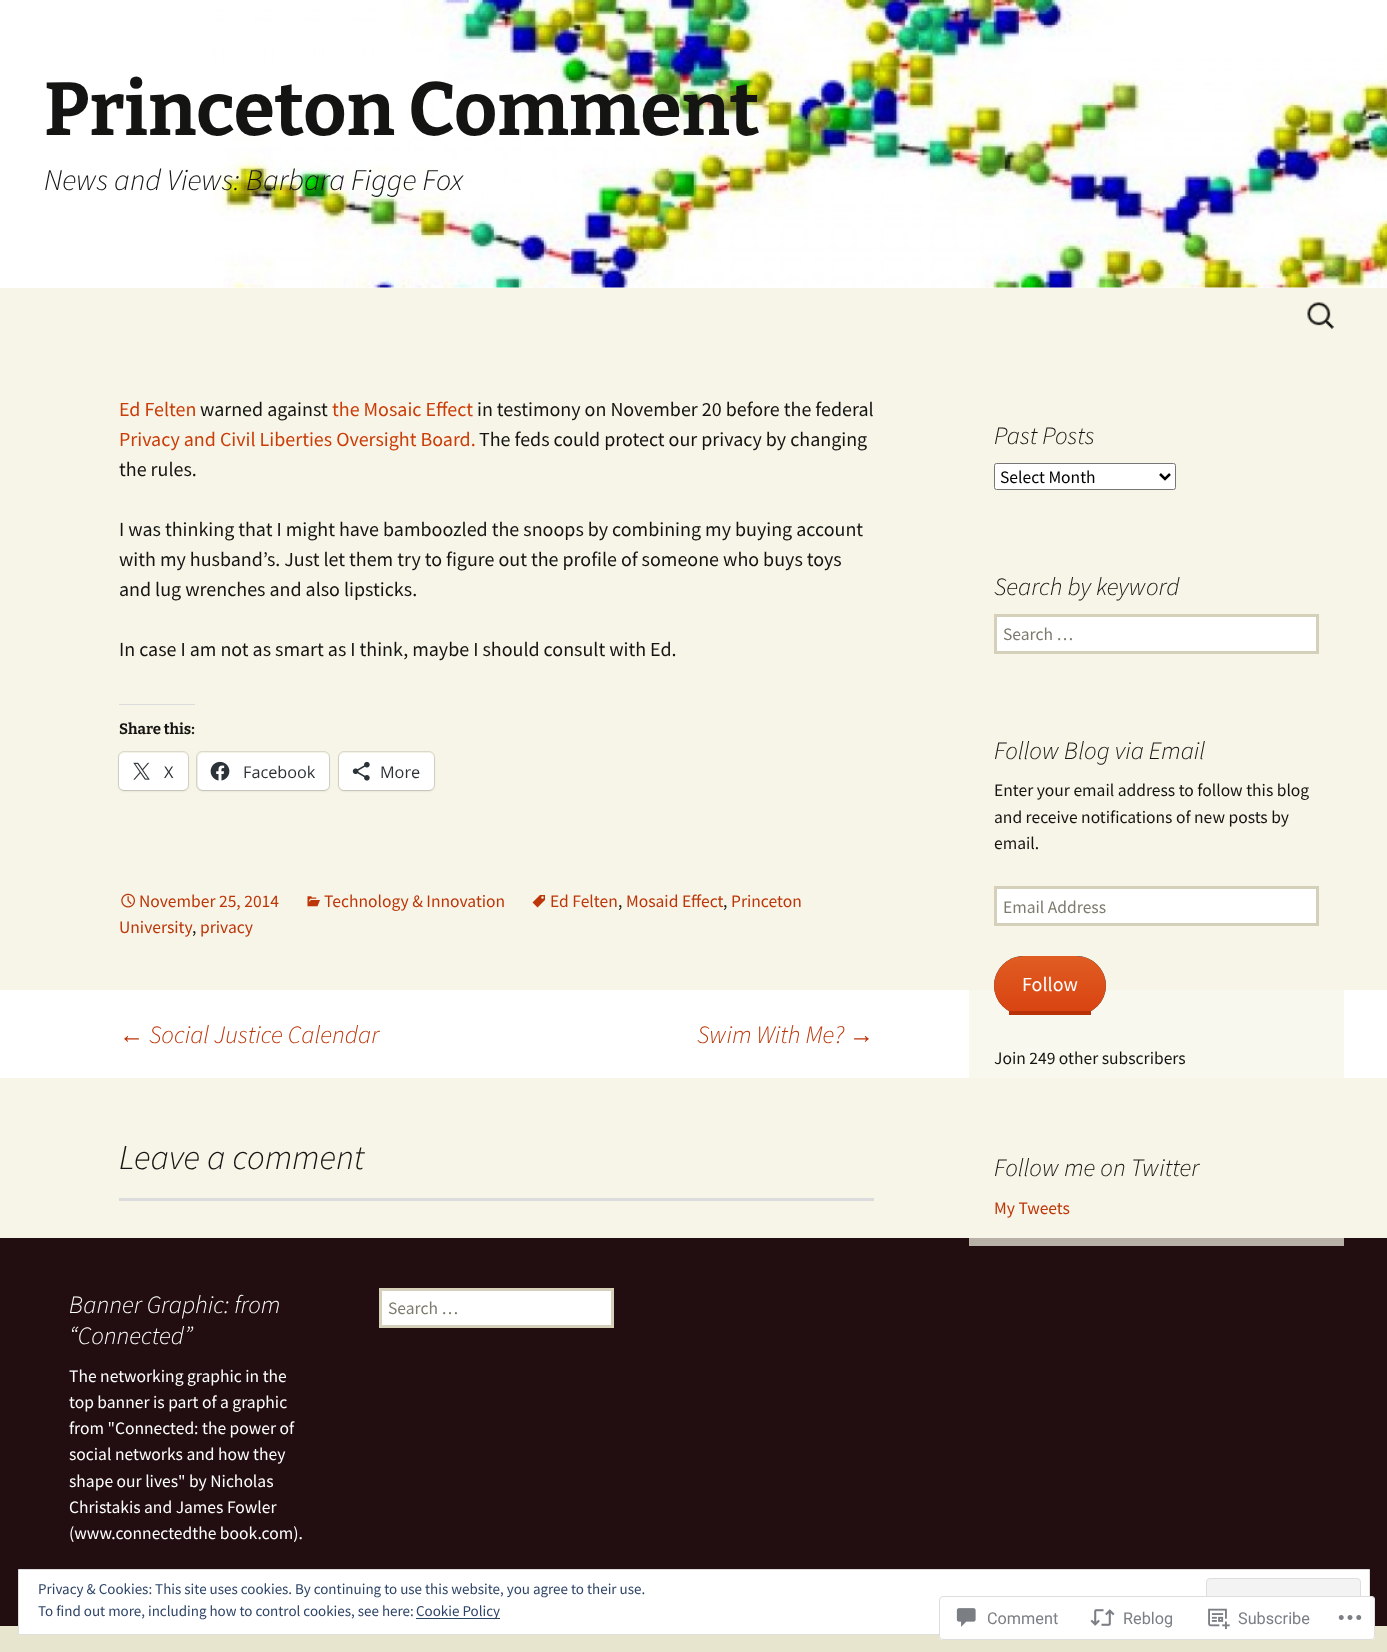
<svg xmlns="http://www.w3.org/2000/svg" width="1387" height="1652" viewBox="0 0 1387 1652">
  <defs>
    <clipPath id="clip1"><rect x="994" y="956" width="112" height="59" rx="29.5"/></clipPath>
    <linearGradient id="g1" gradientUnits="userSpaceOnUse" x1="1050" y1="956" x2="1050" y2="1011"><stop offset="0" stop-color="#e05d22"/><stop offset="1" stop-color="#d94412"/></linearGradient>
  </defs>
  <rect width="100%" height="100%" fill="#fff"/>
  <path d="M969 990h375v88H969z" fill="#f9f8ee"/>
  <image x="213" y="0" width="1174" height="288" href="img/1.png"/>
  <path d="M0 288h1387v702H0z" fill="#f7f5e7"/>
  <image x="1307" y="302" width="27" height="27" href="img/2.png"/>
  <path d="M119 704h76v1H119z" fill="#dcdcde"/>
  <rect x="118.5" y="751.5" width="70" height="39" rx="5.5" fill="none" stroke="#d9d8cb"/>
  <rect x="119" y="754" width="69" height="37" rx="5" fill="#0000001f" filter="blur(1px)"/>
  <rect x="119" y="753" width="69" height="37" rx="5" fill="#fff"/>
  <image x="133" y="762" width="17" height="18" href="img/3.png"/>
  <rect x="196.5" y="751.5" width="133" height="39" rx="5.5" fill="none" stroke="#d9d8cb"/>
  <rect x="198" y="754" width="131" height="37" rx="5" fill="#0000001f" filter="blur(1px)"/>
  <rect x="198" y="753" width="131" height="37" rx="5" fill="#fff"/>
  <image x="210" y="761" width="20" height="20" href="img/4.png"/>
  <rect x="338.5" y="751.5" width="96" height="39" rx="5.5" fill="none" stroke="#d9d8cb"/>
  <rect x="339" y="754" width="95" height="37" rx="5" fill="#0000001f" filter="blur(1px)"/>
  <rect x="339" y="753" width="95" height="37" rx="5" fill="#fff"/>
  <image x="352" y="761" width="18" height="20" href="img/5.png"/>
  <image x="532" y="895" width="13" height="13" href="img/6.png"/>
  <image x="121" y="893" width="14" height="15" href="img/7.png"/>
  <image x="307" y="896" width="13" height="11" href="img/8.png"/>
  <path d="M0 1078h1387v160H0z" fill="#f7f5e7"/>
  <path d="M119 1198h755v3H119z" fill="#dcdcde"/>
  <rect x="994.5" y="463.5" width="181" height="26" rx="2" fill="#fff" stroke="#767676"/>
  <path d="M1160 474L1165 479L1170 474" fill="none" stroke="#000" stroke-width="2.5"/>
  <path d="M995.5 615.5h322v37H995.5z" fill="#fff" stroke="#d4d0ba" stroke-width="3"/>
  <path d="M995.5 887.5h322v37H995.5z" fill="#fff" stroke="#d4d0ba" stroke-width="3"/>
  <rect x="994" y="956" width="112" height="59" rx="29.5" fill="#32373c"/>
  <g clip-path="url(#clip1)">
    <path d="M1023.5 956H1076.5C1093 956 1106 969 1106 985.5V1011H994V985.5C994 969 1007 956 1023.5 956Z" fill="url(#g1)"/>
  </g>
  <path d="M1009 1011h82v4H1009z" fill="#b93207"/>
  <path d="M0 1626h1387v26H0z" fill="#e8e5ce"/>
  <path d="M0 1238h1387v388H0z" fill="#220e10"/>
  <path d="M969 1238h375v8H969z" fill="#b7b0a7"/>
  <path d="M380.5 1289.5h232v37H380.5z" fill="#fff" stroke="#d4d0ba" stroke-width="3"/>
  <path d="M18.5 1569.5h1351v65H18.5z" fill="#fff" stroke="#dedede"/>
  <rect x="1206.5" y="1578.5" width="154" height="47" rx="3.5" fill="#f3f3f3" stroke="#dedede"/>
  <path d="M416 1618h84v1H416z" fill="#2e4467"/>
  <rect x="939" y="1596" width="436" height="44" rx="4" fill="#fffffffa"/>
  <rect x="939.5" y="1596.5" width="435" height="43" rx="3.5" fill="none" stroke="#dcdcdefa"/>
  <image x="956" y="1608" width="20" height="19" href="img/9.png"/>
  <image x="1090" y="1609" width="25" height="17" href="img/10.png"/>
  <image x="1208" y="1608" width="22" height="22" href="img/11.png"/>
  <image x="1338" y="1615" width="24" height="5" href="img/12.png"/>
  <text x="44" y="135" font-family="Bitter" font-size="75" font-weight="bold" fill="#141412">Princeton Comment</text>
  <text x="44" y="190" font-family="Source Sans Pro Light" font-size="30" font-weight="300" font-style="italic" fill="#141412">News and Views: Barbara Figge Fox</text>
  <text x="119" y="416" font-family="Source Sans Pro" font-size="20" fill="#ca3c08">Ed Felten</text>
  <text x="200" y="416" font-family="Source Sans Pro" font-size="20" fill="#141412">warned against</text>
  <text x="332" y="416" font-family="Source Sans Pro" font-size="20" fill="#ca3c08">the Mosaic Effect</text>
  <text x="477" y="416" font-family="Source Sans Pro" font-size="20" fill="#141412">in testimony on November 20 before the federal</text>
  <text x="119" y="446" font-family="Source Sans Pro" font-size="20" fill="#ca3c08">Privacy and Civil Liberties Oversight Board.</text>
  <g font-family="Source Sans Pro" font-size="20" fill="#141412">
    <text x="479" y="446">The feds could protect our privacy by changing</text>
    <text x="119" y="476">the rules.</text>
    <text x="119" y="536">I was thinking that I might have bamboozled the snoops by combining my buying account</text>
    <text x="119" y="566">with my husband’s. Just let them try to figure out the profile of someone who buys toys</text>
    <text x="119" y="596">and lug wrenches and also lipsticks.</text>
    <text x="119" y="656">In case I am not as smart as I think, maybe I should consult with Ed.</text>
  </g>
  <text x="119" y="734" font-family="Bitter" font-size="15" font-weight="bold" fill="#141412">Share this:</text>
  <g font-family="Open Sans" font-size="16.25" fill="#2c3338">
    <text x="164" y="778">X</text>
    <text x="243" y="778">Facebook</text>
    <text x="380" y="778">More</text>
  </g>
  <text x="550" y="907" font-family="Source Sans Pro" font-size="17.5" fill="#bc360a">Ed Felten</text>
  <text x="618" y="907" font-family="Source Sans Pro" font-size="17.5" fill="#141412">,</text>
  <text x="626" y="907" font-family="Source Sans Pro" font-size="17.5" fill="#bc360a">Mosaid Effect</text>
  <text x="723" y="907" font-family="Source Sans Pro" font-size="17.5" fill="#141412">,</text>
  <g font-family="Source Sans Pro" font-size="17.5" fill="#bc360a">
    <text x="731" y="907">Princeton</text>
    <text x="119" y="933">University</text>
  </g>
  <text x="192" y="933" font-family="Source Sans Pro" font-size="17.5" fill="#141412">,</text>
  <g font-family="Source Sans Pro" font-size="17.5" fill="#bc360a">
    <text x="200" y="933">privacy</text>
    <text x="139" y="907">November 25, 2014</text>
    <text x="324" y="907">Technology &amp; Innovation</text>
  </g>
  <text x="119" y="1043" font-family="Liberation Sans" font-size="25" font-style="italic" fill="#bc360a">←</text>
  <g font-family="Source Sans Pro Light" font-size="25" font-weight="300" font-style="italic" fill="#bc360a">
    <text x="149" y="1043">Social Justice Calendar</text>
    <text x="697" y="1043">Swim With Me?</text>
  </g>
  <text x="849" y="1043" font-family="Liberation Sans" font-size="25" font-style="italic" fill="#bc360a">→</text>
  <text x="119" y="1169" font-family="Source Sans Pro Light" font-size="35" font-weight="300" font-style="italic" fill="#141412">Leave a comment</text>
  <text x="994" y="444" font-family="Source Sans Pro Light" font-size="25" font-weight="300" font-style="italic" fill="#141412">Past Posts</text>
  <text x="1000" y="483" font-family="Source Sans Pro" font-size="17.5" fill="#000">Select Month</text>
  <text x="994" y="595" font-family="Source Sans Pro Light" font-size="25" font-weight="300" font-style="italic" fill="#141412">Search by keyword</text>
  <text x="1003" y="640" font-family="Source Sans Pro" font-size="17.5" fill="#7d7b6d">Search …</text>
  <text x="994" y="759" font-family="Source Sans Pro Light" font-size="25" font-weight="300" font-style="italic" fill="#141412">Follow Blog via Email</text>
  <g font-family="Source Sans Pro" font-size="17.5" fill="#141412">
    <text x="994" y="796">Enter your email address to follow this blog</text>
    <text x="994" y="823">and receive notifications of new posts by</text>
    <text x="994" y="849">email.</text>
  </g>
  <text x="1003" y="913" font-family="Source Sans Pro" font-size="17.5" fill="#7d7b6d">Email Address</text>
  <text x="1022" y="991" font-family="Source Sans Pro" font-size="20" fill="#fff">Follow</text>
  <text x="994" y="1064" font-family="Source Sans Pro" font-size="17.5" fill="#141412">Join 249 other subscribers</text>
  <text x="994" y="1176" font-family="Source Sans Pro Light" font-size="25" font-weight="300" font-style="italic" fill="#141412">Follow me on Twitter</text>
  <text x="994" y="1214" font-family="Source Sans Pro" font-size="17.5" fill="#bc360a">My Tweets</text>
  <g font-family="Source Sans Pro Light" font-size="25" font-weight="300" font-style="italic" fill="#fff">
    <text x="69" y="1313">Banner Graphic: from</text>
    <text x="69" y="1344">“Connected”</text>
  </g>
  <g font-family="Source Sans Pro" font-size="17.5" fill="#fff">
    <text x="69" y="1382">The networking graphic in the</text>
    <text x="69" y="1408">top banner is part of a graphic</text>
    <text x="69" y="1434">from "Connected: the power of</text>
    <text x="69" y="1460">social networks and how they</text>
    <text x="69" y="1487">shape our lives" by Nicholas</text>
    <text x="69" y="1513">Christakis and James Fowler</text>
    <text x="69" y="1539">(www.connectedthe book.com).</text>
  </g>
  <text x="388" y="1314" font-family="Source Sans Pro" font-size="17.5" fill="#7d7b6d">Search …</text>
  <g font-family="Source Sans Pro" font-size="15" fill="#2e4467">
    <text x="38" y="1594">Privacy &amp; Cookies: This site uses cookies. By continuing to use this website, you agree to their use.</text>
    <text x="38" y="1616">To find out more, including how to control cookies, see here:</text>
    <text x="416" y="1616">Cookie Policy</text>
  </g>
  <g font-family="Roboto" font-size="16.25" fill="#7b7f85">
    <text x="987" y="1624">Comment</text>
    <text x="1123" y="1624">Reblog</text>
    <text x="1238" y="1624">Subscribe</text>
  </g>
</svg>
